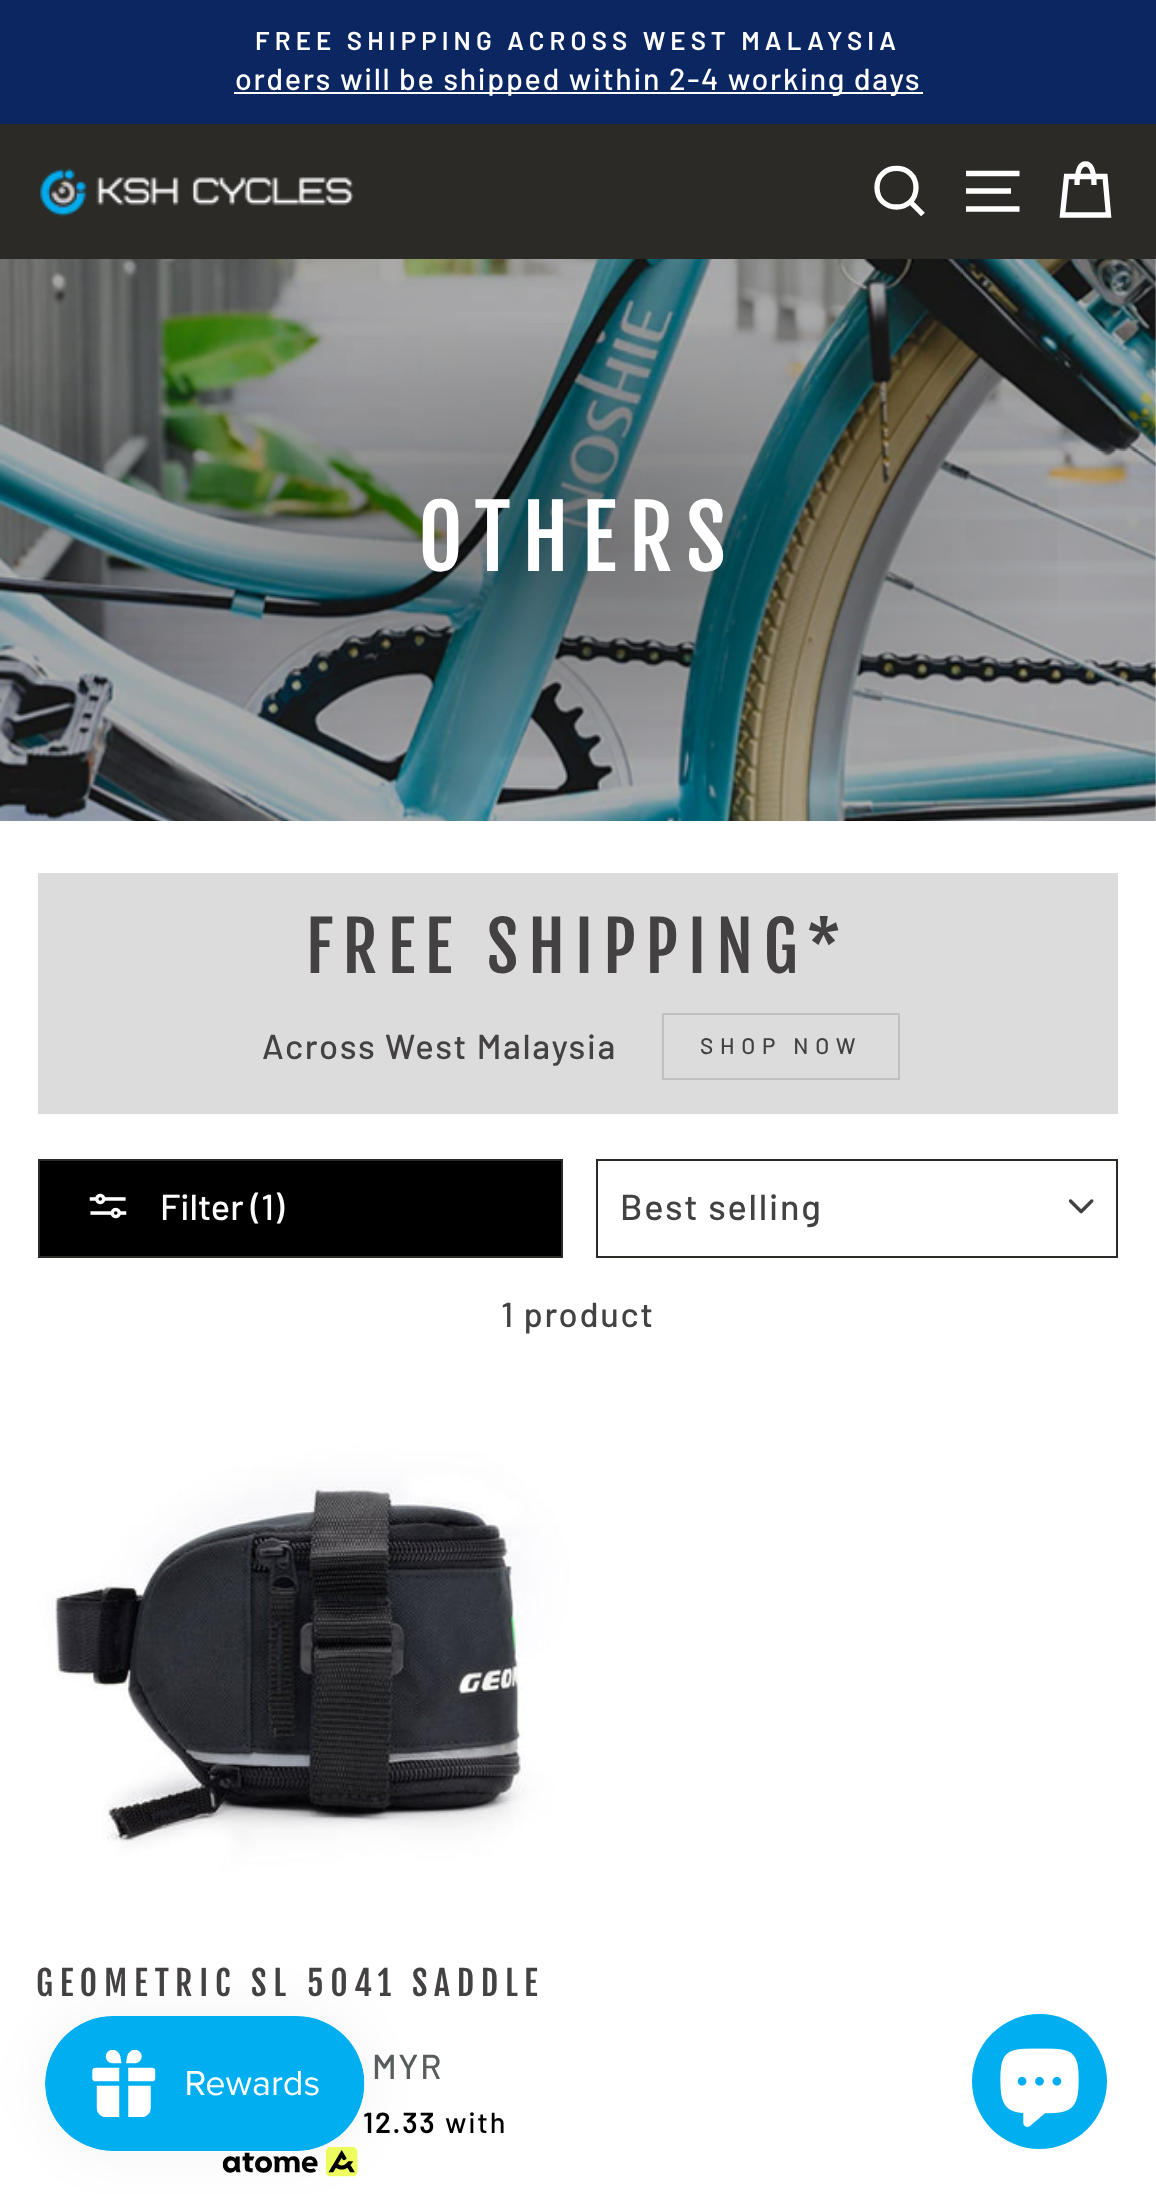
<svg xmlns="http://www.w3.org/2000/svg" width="1156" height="2194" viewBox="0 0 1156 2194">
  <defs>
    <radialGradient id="g1" gradientUnits="userSpaceOnUse" cx="0" cy="0" r="1" gradientTransform="matrix(862 0 0 391 578 540)"><stop offset="0" stop-color="#000" stop-opacity="0.3"/><stop offset="0.6" stop-color="#000" stop-opacity="0"/></radialGradient>
  </defs>
  <rect width="100%" height="100%" fill="#fff"/>
  <path d="M0 0h1156v124H0z" fill="#0b2660"/>
  <path d="M234 92h689v2H234z" fill="#fff"/>
  <path d="M0 124h1156v135H0z" fill="#2b2a27"/>
  <image x="40" y="168" width="314" height="49" href="img/1.png"/>
  <path d="M916 187.5C916 213.5 877 213.5 877 187.5C877 162 916 162 916 187.5ZM923 214.5L910.5 202" fill="none" stroke="#fff" stroke-width="5.3"/>
  <path d="M966 173.5H1019.5M966 191H1011M966 209H1019.5" fill="none" stroke="#fff" stroke-width="5.3"/>
  <path d="M1077 185C1077 168.5 1081 164 1085.5 164C1090 164 1094 168.5 1094 185M1066.5 176.5H1105L1108.5 215H1062.5Z" fill="none" stroke="#fff" stroke-width="5.3"/>
  <image x="0" y="259" width="1156" height="562" href="img/2.png"/>
  <path d="M98 323h960v434H98z" fill="url(#g1)"/>
  <path d="M38 873h1080v241H38z" fill="#dddcdc"/>
  <path d="M663 1014h236v65H663z" fill="none" stroke="#c1c0bf" stroke-width="2"/>
  <path d="M39 1160h523v97H39z" fill="#000" stroke="#2b2a27" stroke-width="2"/>
  <image x="89" y="1193" width="38" height="26" href="img/3.png"/>
  <image x="1069" y="1199" width="25" height="15" href="img/4.png"/>
  <path d="M597 1160h520v97H597z" fill="none" stroke="#2b2a27" stroke-width="2"/>
  <image x="5" y="1373" width="571" height="571" href="img/5.png"/>
  <image x="222" y="2146" width="136" height="31" href="img/6.png"/>
  <rect x="45" y="2016" width="320" height="135" rx="67.5" fill="#0000000d" filter="blur(28px)"/>
  <circle cx="1039.5" cy="2081.5" r="67.5" fill="#01aeef"/>
  <image x="1000" y="2048" width="79" height="79" href="img/8.png"/>
  <text x="255" y="50" font-family="Barlow" font-size="25.8" font-weight="600" letter-spacing="5.15" fill="#fff">FREE SHIPPING ACROSS WEST MALAYSIA</text>
  <text x="235" y="90" font-family="Barlow" font-size="30.4" font-weight="500" letter-spacing="1.7" fill="#fff">orders will be shipped within 2-4 working days</text>
  <text x="418" y="571" font-family="Fjalla One" font-size="86" letter-spacing="13" fill="#fff">OTHERS</text>
  <text x="306" y="973" font-family="Fjalla One" font-size="67.75" letter-spacing="10.25" fill="#434141">FREE SHIPPING*</text>
  <text x="262" y="1059" font-family="Barlow" font-size="34.5" font-weight="500" letter-spacing="1.7" fill="#434141">Across West Malaysia</text>
  <text x="700" y="1054" font-family="Barlow" font-size="22.5" font-weight="500" letter-spacing="6.75" fill="#434141">SHOP NOW</text>
  <text x="160" y="1220" font-family="Barlow" font-size="36" font-weight="500" fill="#fff">Filter (1)</text>
  <text x="620" y="1220" font-family="Barlow" font-size="36" font-weight="500" letter-spacing="1.75" fill="#434141">Best selling</text>
  <text x="501" y="1327" font-family="Barlow" font-size="34.5" font-weight="500" letter-spacing="1.7" fill="#434141">1 product</text>
  <text x="36" y="1996" font-family="Fjalla One" font-size="33.75" letter-spacing="6.75" fill="#434141">GEOMETRIC SL 5041 SADDLE</text>
  <text x="372" y="2079" font-family="Barlow" font-size="34.5" font-weight="500" letter-spacing="1.7" fill="#595d5e">MYR</text>
  <text x="363" y="2133" font-family="Barlow" font-size="29" font-weight="600" letter-spacing="1.7" fill="#000">12.33</text>
  <text x="445" y="2133" font-family="Barlow" font-size="29" font-weight="500" letter-spacing="1.7" fill="#000">with</text>
  <image x="45" y="2016" width="320" height="135" href="img/7.png"/>
</svg>
